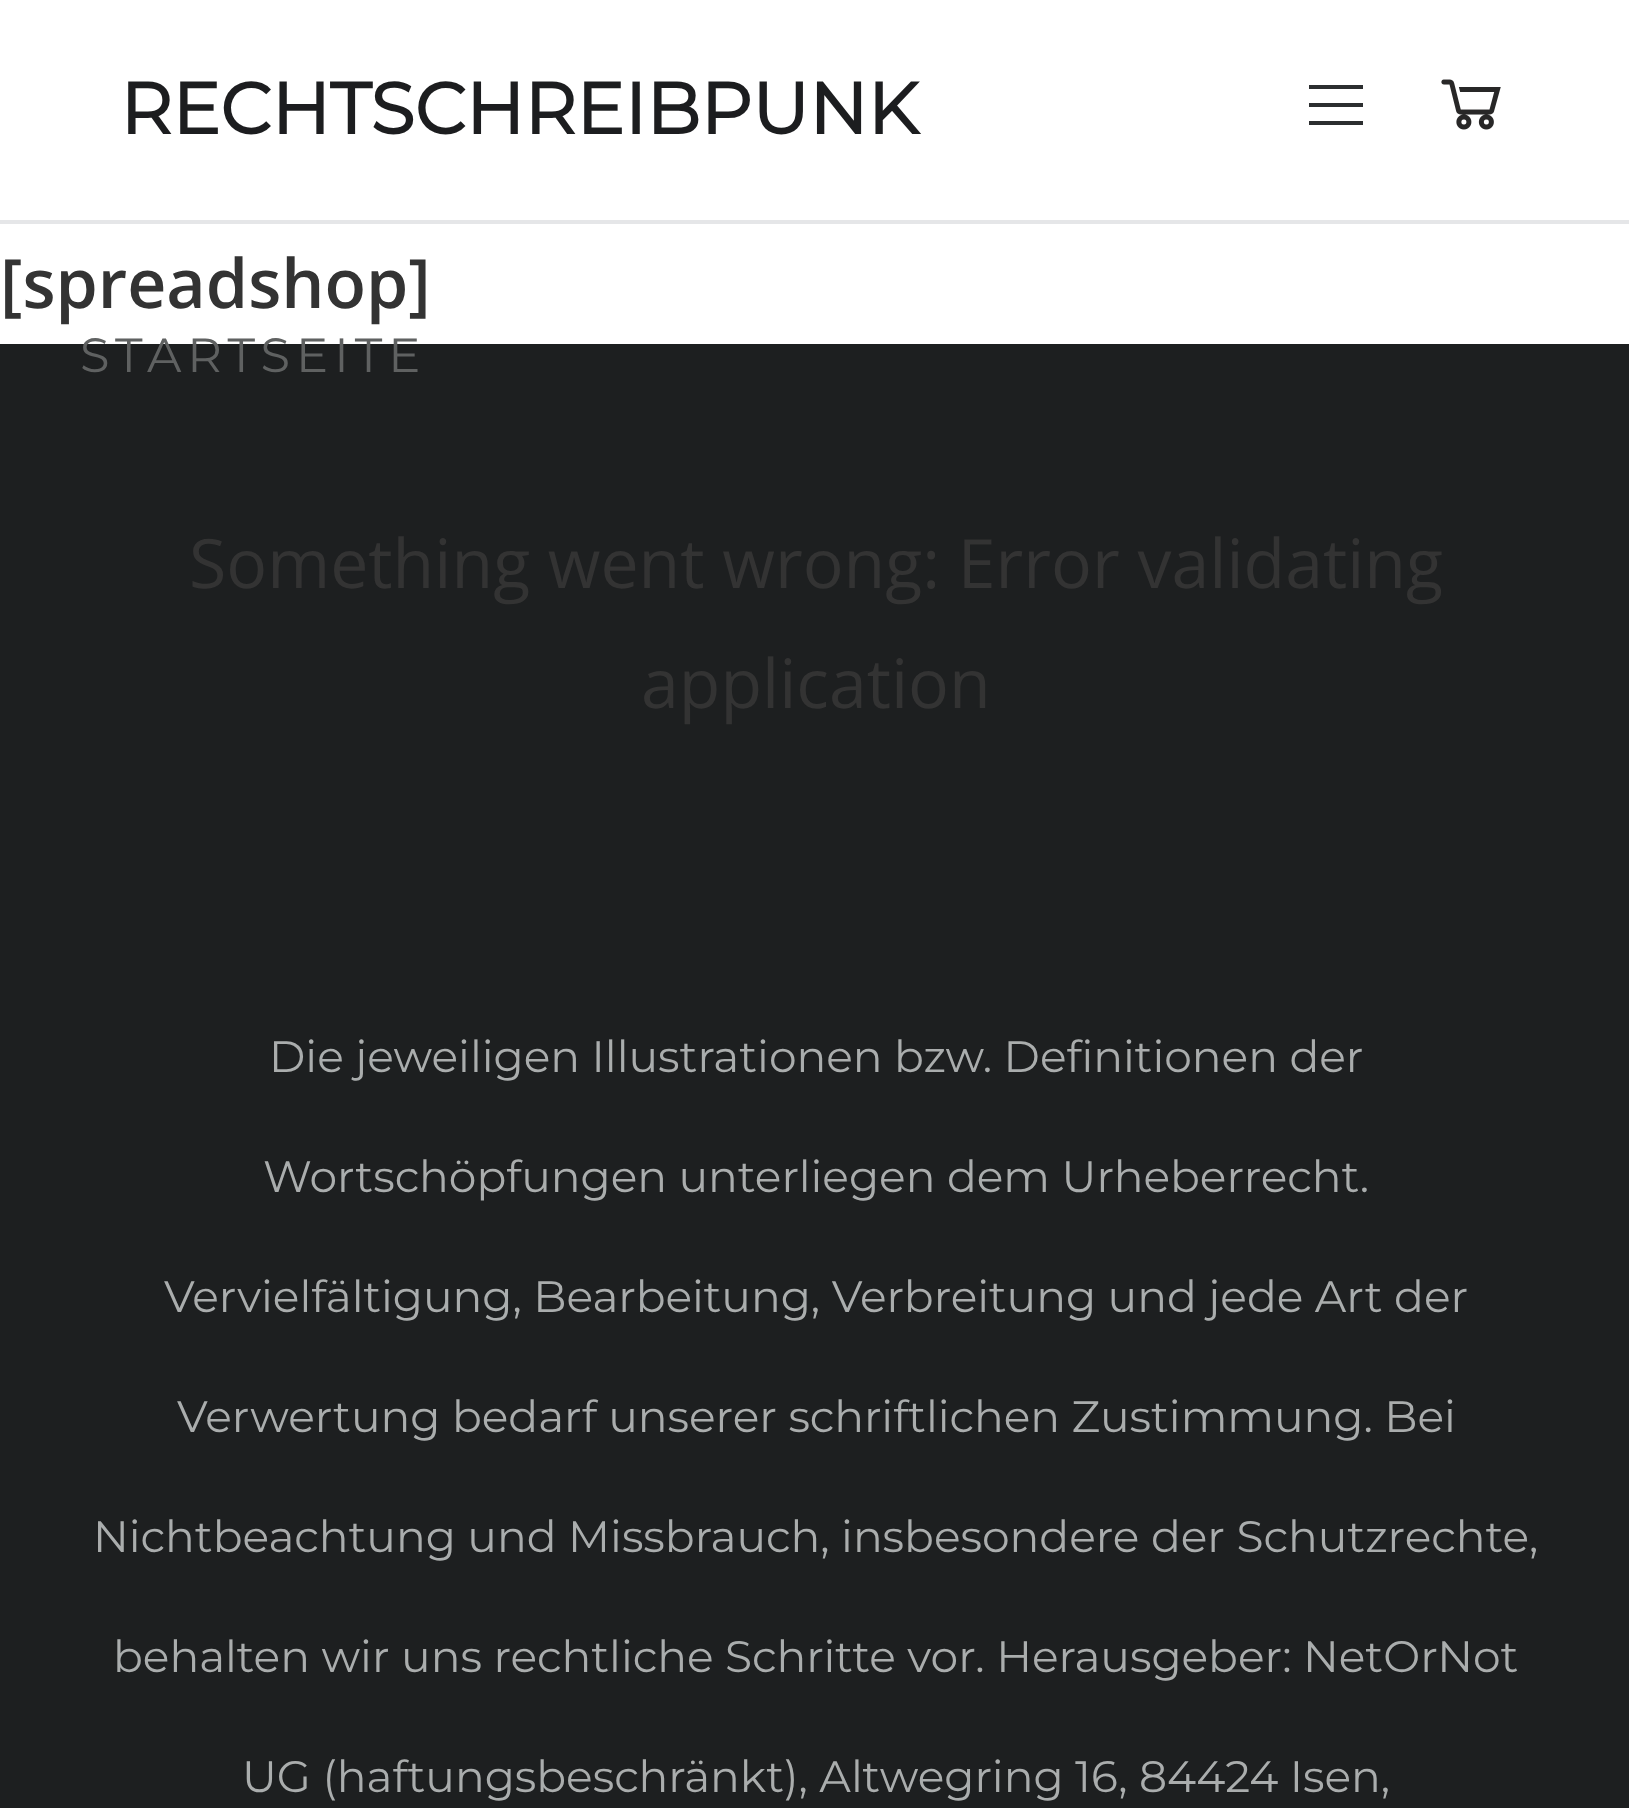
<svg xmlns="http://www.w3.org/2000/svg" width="1629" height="1808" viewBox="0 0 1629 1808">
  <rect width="100%" height="100%" fill="#fff"/>
  <path d="M0 220h1629v4H0z" fill="#e5e6e8"/>
  <path d="M1309 85H1363V89H1309ZM1309 103H1363V107H1309ZM1309 121H1363V125H1309Z" fill="#2c2e30"/>
  <image x="1441" y="79" width="60" height="51" href="img/1.png"/>
  <path d="M0 344h1629v1464H0z" fill="#1d1f20"/>
  <text x="120" y="134" font-family="Montserrat" font-size="72" font-weight="bold" fill="#1c1d1f">RECHTSCHREIBPUNK</text>
  <text x="80" y="372" font-family="Montserrat" font-size="48" font-weight="100" letter-spacing="6" fill="#5f6161">STARTSEITE</text>
  <text x="0" y="308" font-family="Open Sans" font-size="68" font-weight="600" fill="#333">[spreadshop]</text>
  <g font-family="Open Sans" font-size="68" fill="#333">
    <text x="189" y="588">Something went wrong: Error validating</text>
    <text x="641" y="708">application</text>
  </g>
  <g font-family="Montserrat" font-size="44" font-weight="100" fill="#aaadad">
    <text x="269" y="1072">Die jeweiligen Illustrationen bzw. Definitionen der</text>
    <text x="263" y="1192">Wortschöpfungen unterliegen dem Urheberrecht.</text>
    <text x="164" y="1312">Vervielfältigung, Bearbeitung, Verbreitung und jede Art der</text>
    <text x="177" y="1432">Verwertung bedarf unserer schriftlichen Zustimmung. Bei</text>
    <text x="93" y="1552">Nichtbeachtung und Missbrauch, insbesondere der Schutzrechte,</text>
    <text x="113" y="1672">behalten wir uns rechtliche Schritte vor. Herausgeber: NetOrNot</text>
    <text x="242" y="1792">UG (haftungsbeschränkt), Altwegring 16, 84424 Isen,</text>
  </g>
</svg>
